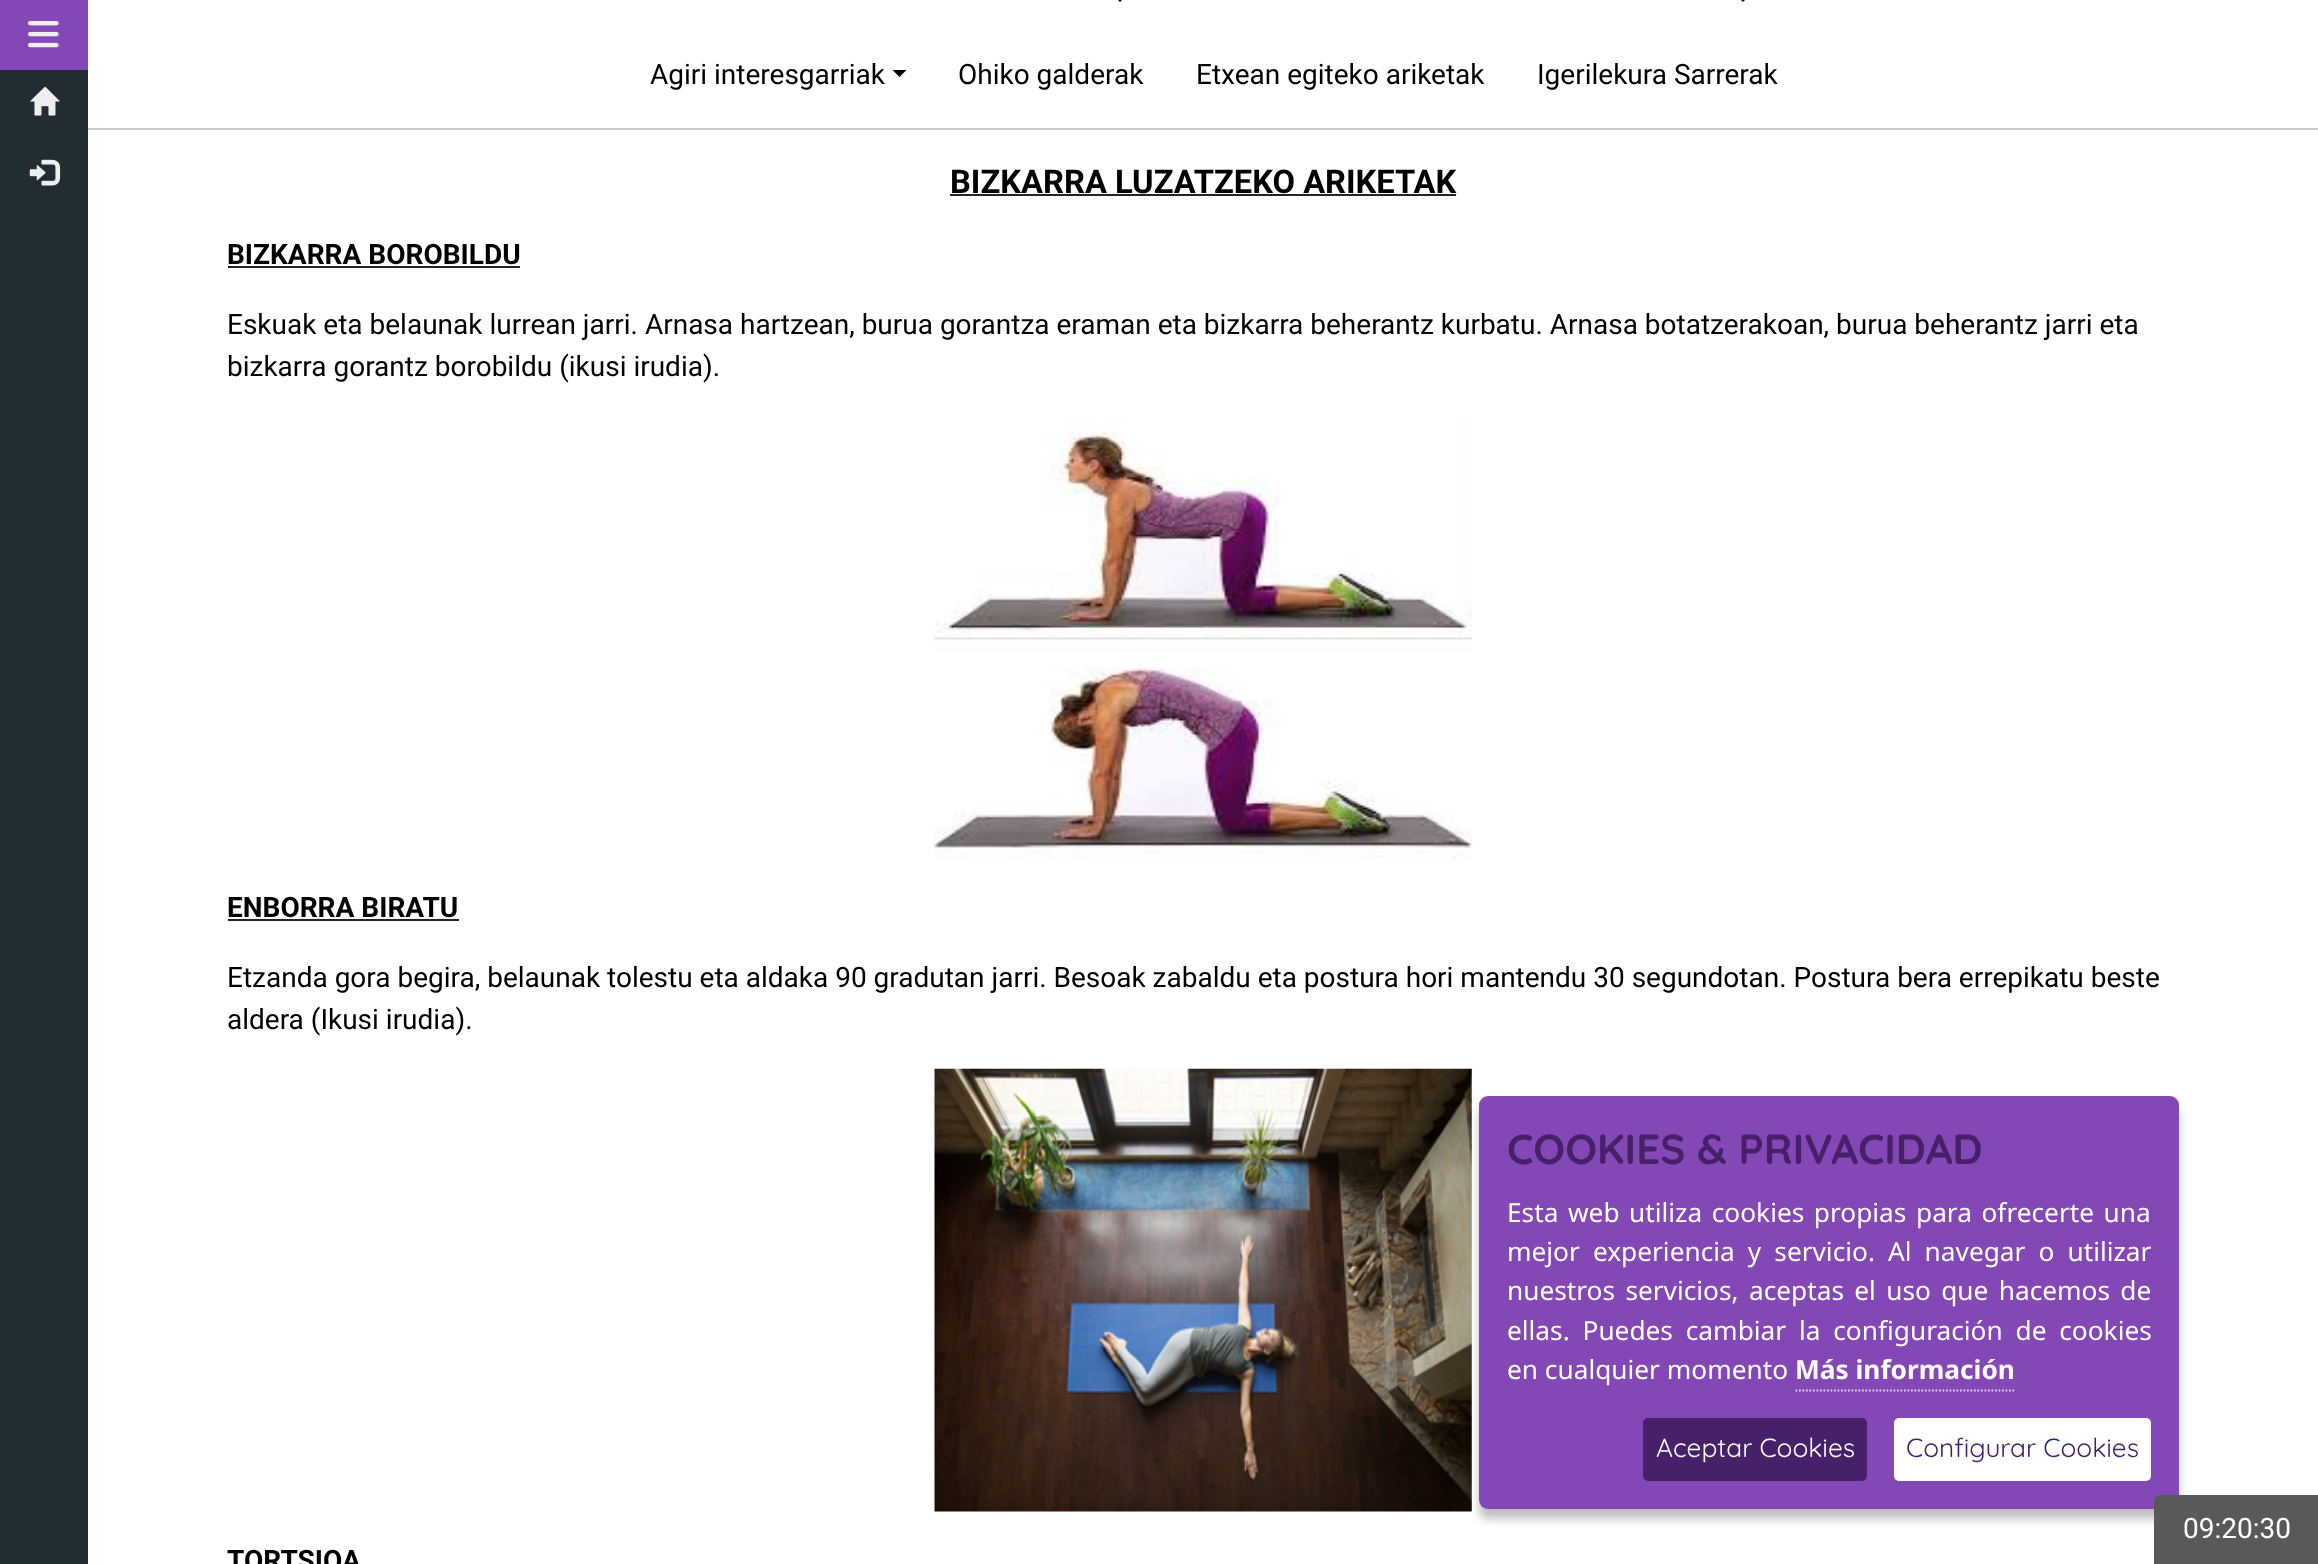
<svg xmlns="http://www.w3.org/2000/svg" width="2318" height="1564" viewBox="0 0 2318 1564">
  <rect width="100%" height="100%" fill="#fff"/>
  <path d="M0 70h88v1494H0z" fill="#222d32"/>
  <path d="M0 0h88v70H0z" fill="#8348b6"/>
  <image x="28" y="21" width="31" height="27" href="img/1.png"/>
  <image x="30" y="86" width="30" height="30" href="img/2.png"/>
  <image x="29" y="159" width="32" height="27" href="img/3.png"/>
  <path d="M1113-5H1127L1120 2Z" fill="#000"/>
  <path d="M1736-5H1750L1743 2Z" fill="#000"/>
  <path d="M892.5 70H906.5L899.5 77Z" fill="#000"/>
  <path d="M88 128h2230v2H88z" fill="#c8c9ca"/>
  <path d="M950 194h506v2H950z" fill="#212529"/>
  <path d="M228 266h292v2H228z" fill="#212529"/>
  <image x="934" y="416" width="538" height="443" href="img/4.png"/>
  <path d="M228 919h231v2H228z" fill="#212529"/>
  <image x="934" y="1068" width="538" height="444" href="img/5.png"/>
  <rect x="1479" y="1106" width="700" height="413" rx="9" fill="#00000040" filter="blur(5px)"/>
  <rect x="1479" y="1096" width="700" height="413" rx="9" fill="#8348b6"/>
  <path d="M1795.5 1390.5H2014" fill="none" stroke="#e0d1ed" stroke-width="1.8" stroke-dasharray="1.75 1.75"/>
  <rect x="1643" y="1418" width="224" height="63" rx="5" fill="#462069"/>
  <rect x="1894" y="1418" width="257" height="63" rx="5" fill="#fff"/>
  <path d="M2161 1495H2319V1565H2154V1502C2154 1498 2157 1495 2161 1495Z" fill="#595959"/>
  <g font-family="Roboto" font-size="28" fill="#000">
    <text x="650" y="84">Agiri interesgarriak</text>
    <text x="958" y="84">Ohiko galderak</text>
    <text x="1196" y="84">Etxean egiteko ariketak</text>
    <text x="1537" y="84">Igerilekura Sarrerak</text>
  </g>
  <text x="950" y="193" font-family="Roboto" font-size="32.7" font-weight="bold" fill="#000">BIZKARRA LUZATZEKO ARIKETAK</text>
  <text x="227" y="264" font-family="Roboto" font-size="28" font-weight="bold" fill="#000">BIZKARRA BOROBILDU</text>
  <g font-family="Roboto" font-size="28" fill="#000">
    <text x="227" y="334">Eskuak eta belaunak lurrean jarri. Arnasa hartzean, burua gorantza eraman eta bizkarra beherantz kurbatu. Arnasa botatzerakoan, burua beherantz jarri eta</text>
    <text x="227" y="376">bizkarra gorantz borobildu (ikusi irudia).</text>
  </g>
  <text x="227" y="917" font-family="Roboto" font-size="28" font-weight="bold" fill="#000">ENBORRA BIRATU</text>
  <g font-family="Roboto" font-size="28" fill="#000">
    <text x="227" y="987">Etzanda gora begira, belaunak tolestu eta aldaka 90 gradutan jarri. Besoak zabaldu eta postura hori mantendu 30 segundotan. Postura bera errepikatu beste</text>
    <text x="227" y="1029">aldera (Ikusi irudia).</text>
  </g>
  <text x="227" y="1570" font-family="Roboto" font-size="28" font-weight="bold" fill="#000">TORTSIOA</text>
  <text x="1507" y="1164" font-family="Quicksand" font-size="42" font-weight="bold" fill="#462069">COOKIES &amp; PRIVACIDAD</text>
  <g font-family="Noto Sans" font-size="26.25" fill="#fff">
    <text x="1507" y="1222" word-spacing="2.75">Esta web utiliza cookies propias para ofrecerte una</text>
    <text x="1507" y="1261" word-spacing="6.25">mejor experiencia y servicio. Al navegar o utilizar</text>
    <text x="1507" y="1300" word-spacing="3.5">nuestros servicios, aceptas el uso que hacemos de</text>
    <text x="1507" y="1340" word-spacing="6">ellas. Puedes cambiar la configuración de cookies</text>
    <text x="1507" y="1379">en cualquier momento</text>
  </g>
  <text x="1795" y="1379" font-family="Noto Sans" font-size="26.25" font-weight="bold" fill="#fff">Más información</text>
  <text x="1656" y="1457" font-family="Quicksand" font-size="26.25" fill="#fff">Aceptar Cookies</text>
  <text x="1906" y="1457" font-family="Quicksand" font-size="26.25" fill="#462069">Configurar Cookies</text>
  <text x="2183" y="1538" font-family="Roboto" font-size="28" fill="#fff">09:20:30</text>
</svg>
